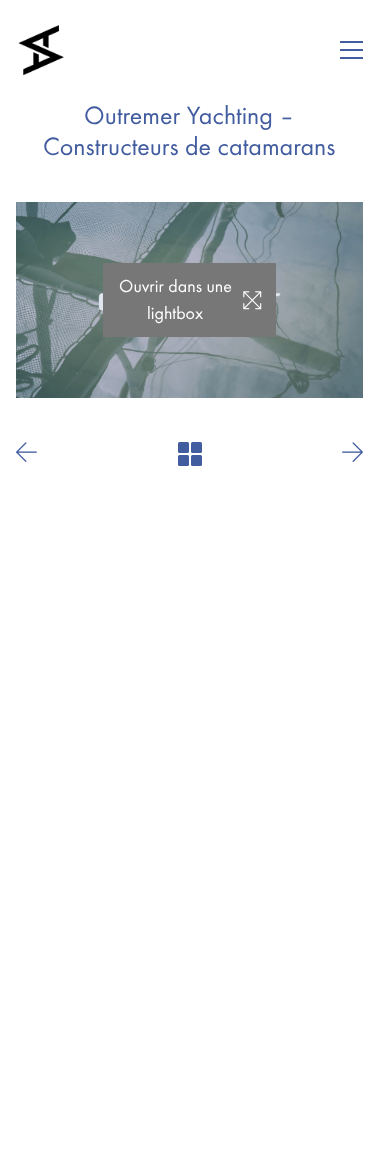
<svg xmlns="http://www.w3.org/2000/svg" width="379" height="1172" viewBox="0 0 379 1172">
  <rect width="100%" height="100%" fill="#fff"/>
  <image x="18" y="25" width="46" height="50" href="img/1.png"/>
  <path d="M340 41h23v2H340z" fill="#415c9f"/>
  <path d="M340 49h23v2H340z" fill="#415c9f"/>
  <path d="M340 57h23v2H340z" fill="#415c9f"/>
  <image x="16" y="202" width="347" height="196" href="img/2.png"/>
  <path d="M103 263h173v74H103z" fill="#777"/>
  <image x="243" y="291" width="19" height="19" href="img/3.png"/>
  <image x="16" y="442" width="21" height="20" href="img/4.png"/>
  <rect x="178" y="442" width="11" height="11" rx="1.5" fill="#415c9f"/>
  <rect x="191" y="442" width="11" height="11" rx="1.5" fill="#415c9f"/>
  <rect x="178" y="455" width="11" height="11" rx="1.5" fill="#415c9f"/>
  <rect x="191" y="455" width="11" height="11" rx="1.5" fill="#415c9f"/>
  <image x="342" y="442" width="21" height="20" href="img/5.png"/>
  <g font-family="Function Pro" font-size="26" fill="#415c9f">
    <text x="84" y="124">Outremer Yachting –</text>
    <text x="43" y="155">Constructeurs de catamarans</text>
  </g>
  <g font-family="Function Pro" font-size="18" fill="#fff">
    <text x="119" y="292">Ouvrir dans une</text>
    <text x="147" y="319">lightbox</text>
  </g>
</svg>
